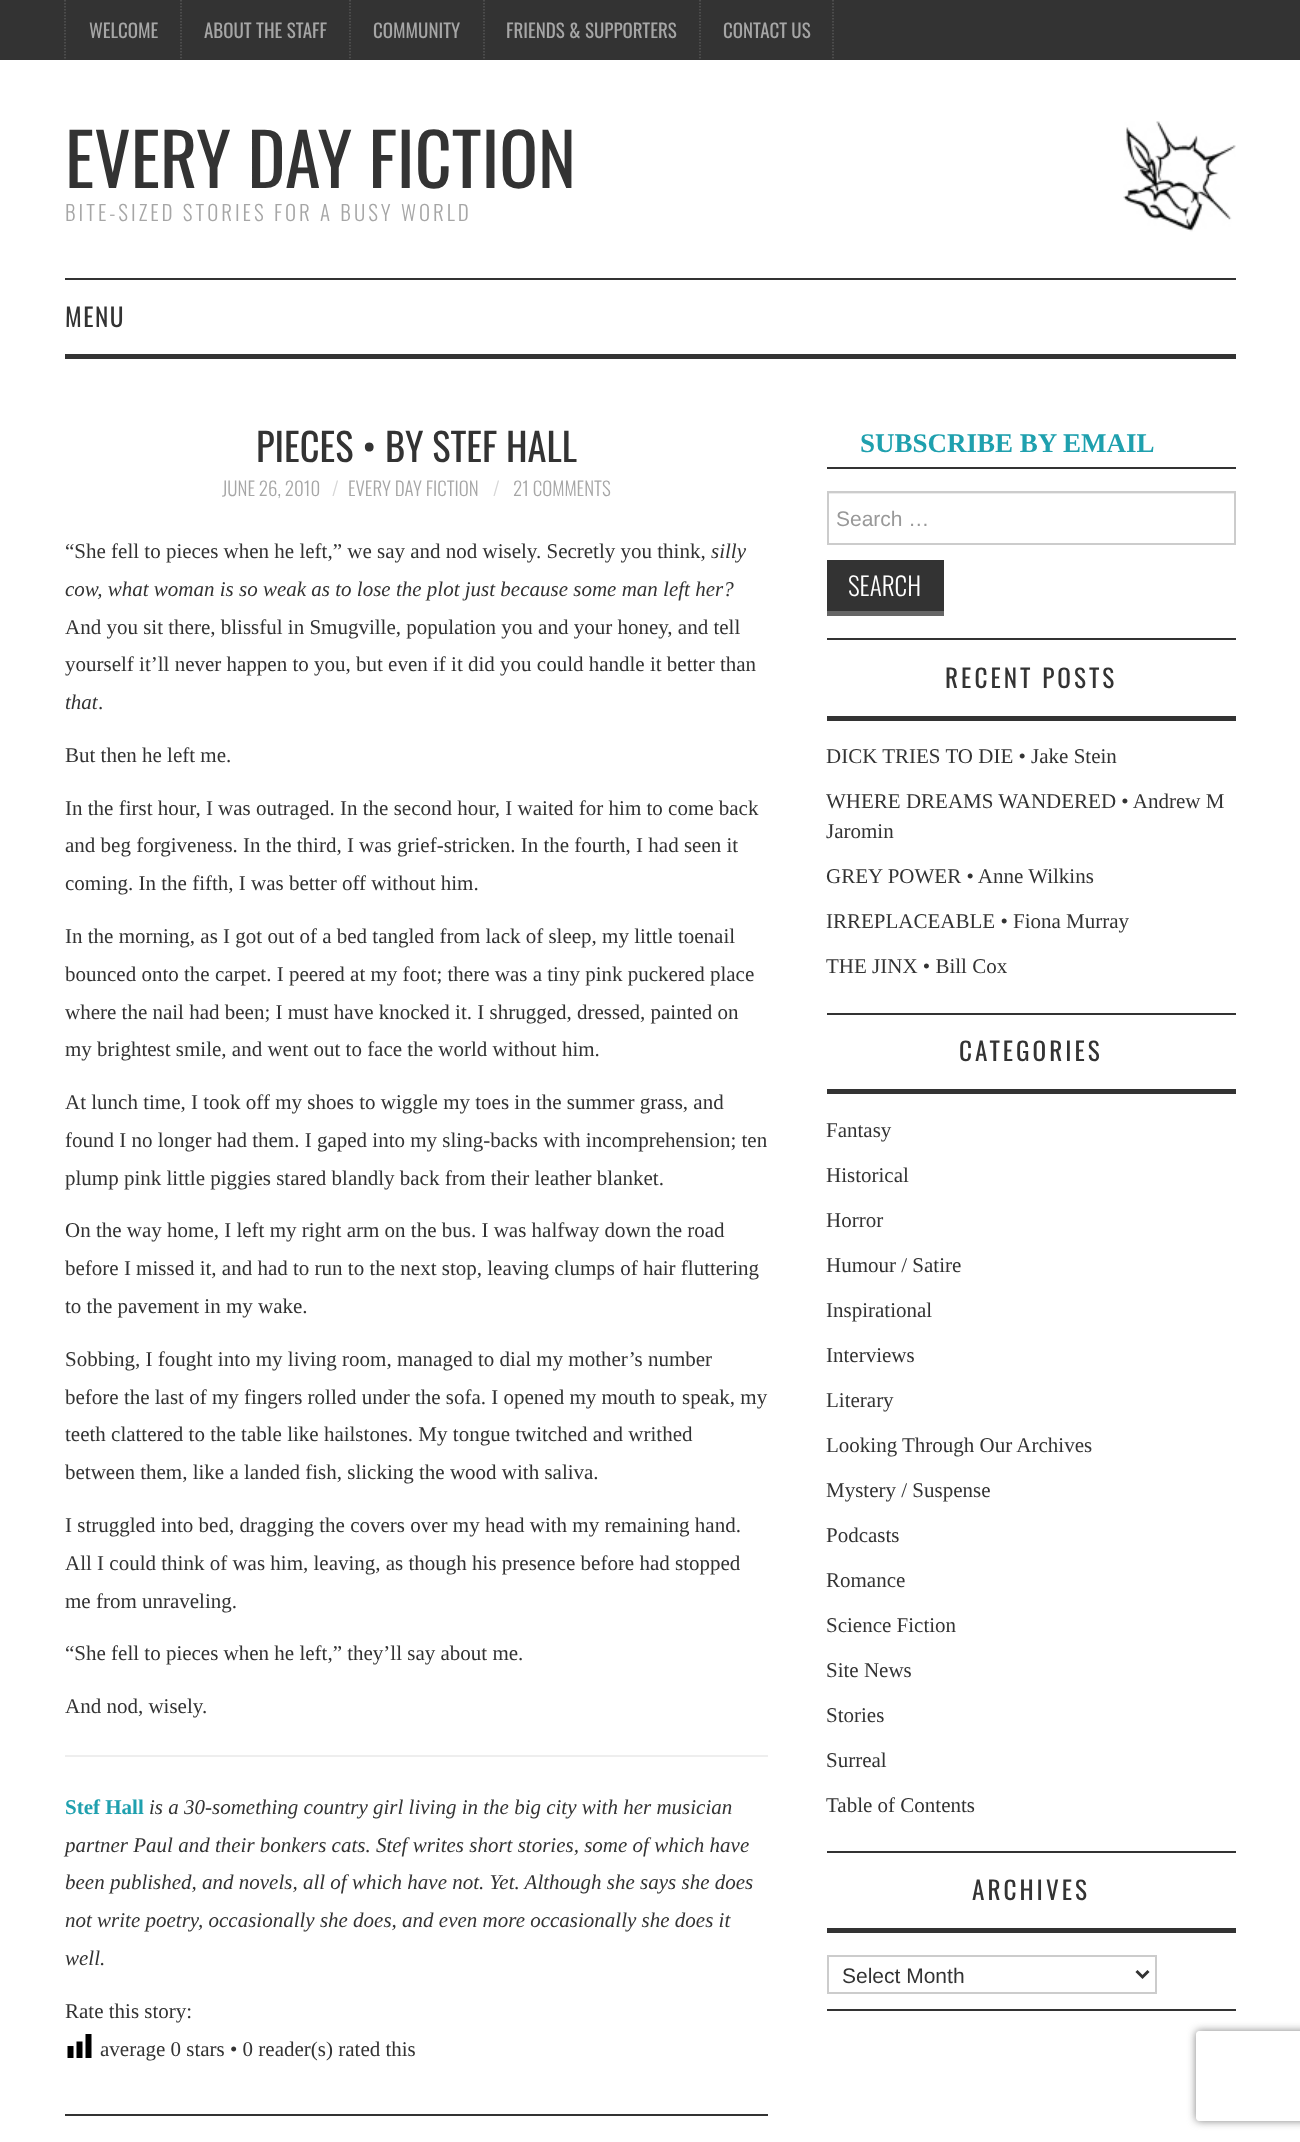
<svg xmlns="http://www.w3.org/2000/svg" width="1300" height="2142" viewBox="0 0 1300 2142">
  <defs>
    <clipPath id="clip1"><path d="M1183 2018H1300V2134H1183ZM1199 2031H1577C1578.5 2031 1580 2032.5 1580 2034V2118C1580 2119.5 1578.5 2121 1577 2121H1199C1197.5 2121 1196 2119.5 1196 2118V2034C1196 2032.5 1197.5 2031 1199 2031Z" clip-rule="evenodd"/></clipPath>
  </defs>
  <rect width="100%" height="100%" fill="#fff"/>
  <path d="M0 0h1300v60H0z" fill="#333"/>
  <path d="M65 0V60" fill="none" stroke="#565656" stroke-width="1.5" stroke-dasharray="1.5 1.5"/>
  <path d="M181 0V60" fill="none" stroke="#565656" stroke-width="1.5" stroke-dasharray="1.5 1.5"/>
  <path d="M350 0V60" fill="none" stroke="#565656" stroke-width="1.5" stroke-dasharray="1.5 1.5"/>
  <path d="M484 0V60" fill="none" stroke="#565656" stroke-width="1.5" stroke-dasharray="1.5 1.5"/>
  <path d="M700 0V60" fill="none" stroke="#565656" stroke-width="1.5" stroke-dasharray="1.5 1.5"/>
  <path d="M833 0V60" fill="none" stroke="#565656" stroke-width="1.5" stroke-dasharray="1.5 1.5"/>
  <image x="1123" y="121" width="113" height="111" href="img/1.png"/>
  <path d="M65 278h1171v2H65z" fill="#333"/>
  <path d="M65 354h1171v5H65z" fill="#333"/>
  <path d="M65 1755h703v2H65z" fill="#eee"/>
  <image x="67" y="2034" width="25" height="24" href="img/2.png"/>
  <path d="M65 2114h703v2H65z" fill="#333"/>
  <path d="M827 467h409v2H827z" fill="#333"/>
  <path d="M827 638h409v2H827z" fill="#333"/>
  <path d="M828 493h407v1H828z" fill="#ececec"/>
  <path d="M828 492h407v52H828z" fill="none" stroke="#ccc" stroke-width="2"/>
  <path d="M827 560h117v51H827z" fill="#333"/>
  <path d="M827 611h117v5H827z" fill="#666"/>
  <path d="M827 1013h409v2H827z" fill="#333"/>
  <path d="M827 716h409v5H827z" fill="#333"/>
  <path d="M827 1851h409v2H827z" fill="#333"/>
  <path d="M827 1089h409v5H827z" fill="#333"/>
  <path d="M827 2009h409v2H827z" fill="#333"/>
  <path d="M827 1928h409v5H827z" fill="#333"/>
  <path d="M828 1956h328v37H828z" fill="none" stroke="#ccc" stroke-width="2"/>
  <path d="M1136.5 1971L1142.5 1977L1148.5 1971" fill="none" stroke="#333" stroke-width="3"/>
  <g clip-path="url(#clip1)">
    <rect x="1196" y="2031" width="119" height="90" rx="3" fill="#808080" filter="blur(4px)"/>
  </g>
  <g font-family="Oswald" font-size="19" fill="#a6a6a6">
    <text x="89" y="38">WELCOME</text>
    <text x="204" y="38">ABOUT THE STAFF</text>
    <text x="373" y="38">COMMUNITY</text>
    <text x="506" y="38">FRIENDS &amp; SUPPORTERS</text>
    <text x="723" y="38">CONTACT US</text>
  </g>
  <text x="65" y="188" font-family="Oswald" font-size="72" fill="#333">EVERY DAY FICTION</text>
  <text x="65" y="221" font-family="Oswald" font-size="21" font-weight="300" letter-spacing="3" fill="#a6a6a6">BITE-SIZED STORIES FOR A BUSY WORLD</text>
  <text x="65" y="327" font-family="Oswald" font-size="25.25" letter-spacing="1.5" fill="#333">MENU</text>
  <text x="256" y="462" font-family="Oswald" font-size="38.5" fill="#333">PIECES • BY STEF HALL</text>
  <text x="222" y="496" font-family="Oswald" font-size="19" font-weight="300" fill="#a6a6a6">JUNE 26, 2010</text>
  <text x="332" y="496" font-family="Oswald" font-size="19" font-weight="300" fill="#d6d6d6">/</text>
  <text x="348" y="496" font-family="Oswald" font-size="19" font-weight="300" fill="#a6a6a6">EVERY DAY FICTION</text>
  <text x="493" y="496" font-family="Oswald" font-size="19" font-weight="300" fill="#d6d6d6">/</text>
  <text x="513" y="496" font-family="Oswald" font-size="19" font-weight="300" fill="#a6a6a6">21 COMMENTS</text>
  <text x="65" y="558" font-family="Liberation Serif" font-size="21" fill="#333">“She fell to pieces when he left,” we say and nod wisely. Secretly you think,</text>
  <g font-family="Liberation Serif" font-size="21" font-style="italic" fill="#333">
    <text x="711" y="558">silly</text>
    <text x="65" y="596">cow, what woman is so weak as to lose the plot just because some man left her?</text>
  </g>
  <g font-family="Liberation Serif" font-size="21" fill="#333">
    <text x="65" y="634">And you sit there, blissful in Smugville, population you and your honey, and tell</text>
    <text x="65" y="671">yourself it’ll never happen to you, but even if it did you could handle it better than</text>
  </g>
  <text x="65" y="709" font-family="Liberation Serif" font-size="21" font-style="italic" fill="#333">that</text>
  <g font-family="Liberation Serif" font-size="21" fill="#333">
    <text x="98" y="709">.</text>
    <text x="65" y="762">But then he left me.</text>
    <text x="65" y="815">In the first hour, I was outraged. In the second hour, I waited for him to come back</text>
    <text x="65" y="852">and beg forgiveness. In the third, I was grief-stricken. In the fourth, I had seen it</text>
    <text x="65" y="890">coming. In the fifth, I was better off without him.</text>
    <text x="65" y="943">In the morning, as I got out of a bed tangled from lack of sleep, my little toenail</text>
    <text x="65" y="981">bounced onto the carpet. I peered at my foot; there was a tiny pink puckered place</text>
    <text x="65" y="1019">where the nail had been; I must have knocked it. I shrugged, dressed, painted on</text>
    <text x="65" y="1056">my brightest smile, and went out to face the world without him.</text>
    <text x="65" y="1109">At lunch time, I took off my shoes to wiggle my toes in the summer grass, and</text>
    <text x="65" y="1147">found I no longer had them. I gaped into my sling-backs with incomprehension; ten</text>
    <text x="65" y="1185">plump pink little piggies stared blandly back from their leather blanket.</text>
    <text x="65" y="1237">On the way home, I left my right arm on the bus. I was halfway down the road</text>
    <text x="65" y="1275">before I missed it, and had to run to the next stop, leaving clumps of hair fluttering</text>
    <text x="65" y="1313">to the pavement in my wake.</text>
    <text x="65" y="1366">Sobbing, I fought into my living room, managed to dial my mother’s number</text>
    <text x="65" y="1404">before the last of my fingers rolled under the sofa. I opened my mouth to speak, my</text>
    <text x="65" y="1441">teeth clattered to the table like hailstones. My tongue twitched and writhed</text>
    <text x="65" y="1479">between them, like a landed fish, slicking the wood with saliva.</text>
    <text x="65" y="1532">I struggled into bed, dragging the covers over my head with my remaining hand.</text>
    <text x="65" y="1570">All I could think of was him, leaving, as though his presence before had stopped</text>
    <text x="65" y="1608">me from unraveling.</text>
    <text x="65" y="1660">“She fell to pieces when he left,” they’ll say about me.</text>
    <text x="65" y="1713">And nod, wisely.</text>
  </g>
  <text x="65" y="1814" font-family="Liberation Serif" font-size="21" font-weight="bold" fill="#1fa0ae">Stef Hall</text>
  <g font-family="Liberation Serif" font-size="21" font-style="italic" fill="#333">
    <text x="149" y="1814">is a 30-something country girl living in the big city with her musician</text>
    <text x="65" y="1852">partner Paul and their bonkers cats. Stef writes short stories, some of which have</text>
    <text x="65" y="1889">been published, and novels, all of which have not. Yet. Although she says she does</text>
    <text x="65" y="1927">not write poetry, occasionally she does, and even more occasionally she does it</text>
    <text x="65" y="1965">well.</text>
  </g>
  <g font-family="Liberation Serif" font-size="21" fill="#333">
    <text x="65" y="2018">Rate this story:</text>
    <text x="100" y="2056">average 0 stars • 0 reader(s) rated this</text>
  </g>
  <text x="860" y="452" font-family="Liberation Serif" font-size="27" font-weight="bold" fill="#1fa0ae">SUBSCRIBE BY EMAIL</text>
  <text x="836" y="526" font-family="Liberation Sans" font-size="21" fill="#999">Search …</text>
  <text x="848" y="596" font-family="Oswald" font-size="25.25" font-weight="300" fill="#fff">SEARCH</text>
  <text x="945" y="688" font-family="Oswald" font-size="25.25" letter-spacing="3" fill="#333">RECENT POSTS</text>
  <g font-family="Liberation Serif" font-size="21" fill="#333">
    <text x="826" y="763">DICK TRIES TO DIE • Jake Stein</text>
    <text x="826" y="808">WHERE DREAMS WANDERED • Andrew M</text>
    <text x="826" y="838">Jaromin</text>
    <text x="826" y="883">GREY POWER • Anne Wilkins</text>
    <text x="826" y="928">IRREPLACEABLE • Fiona Murray</text>
    <text x="826" y="973">THE JINX • Bill Cox</text>
  </g>
  <text x="959" y="1061" font-family="Oswald" font-size="25.25" letter-spacing="3" fill="#333">CATEGORIES</text>
  <g font-family="Liberation Serif" font-size="21" fill="#333">
    <text x="826" y="1137">Fantasy</text>
    <text x="826" y="1182">Historical</text>
    <text x="826" y="1227">Horror</text>
    <text x="826" y="1272">Humour / Satire</text>
    <text x="826" y="1317">Inspirational</text>
    <text x="826" y="1362">Interviews</text>
    <text x="826" y="1407">Literary</text>
    <text x="826" y="1452">Looking Through Our Archives</text>
    <text x="826" y="1497">Mystery / Suspense</text>
    <text x="826" y="1542">Podcasts</text>
    <text x="826" y="1587">Romance</text>
    <text x="826" y="1632">Science Fiction</text>
    <text x="826" y="1677">Site News</text>
    <text x="826" y="1722">Stories</text>
    <text x="826" y="1767">Surreal</text>
    <text x="826" y="1812">Table of Contents</text>
  </g>
  <text x="972" y="1900" font-family="Oswald" font-size="25.25" letter-spacing="3" fill="#333">ARCHIVES</text>
  <text x="842" y="1983" font-family="Liberation Sans" font-size="21" fill="#333">Select Month</text>
</svg>
